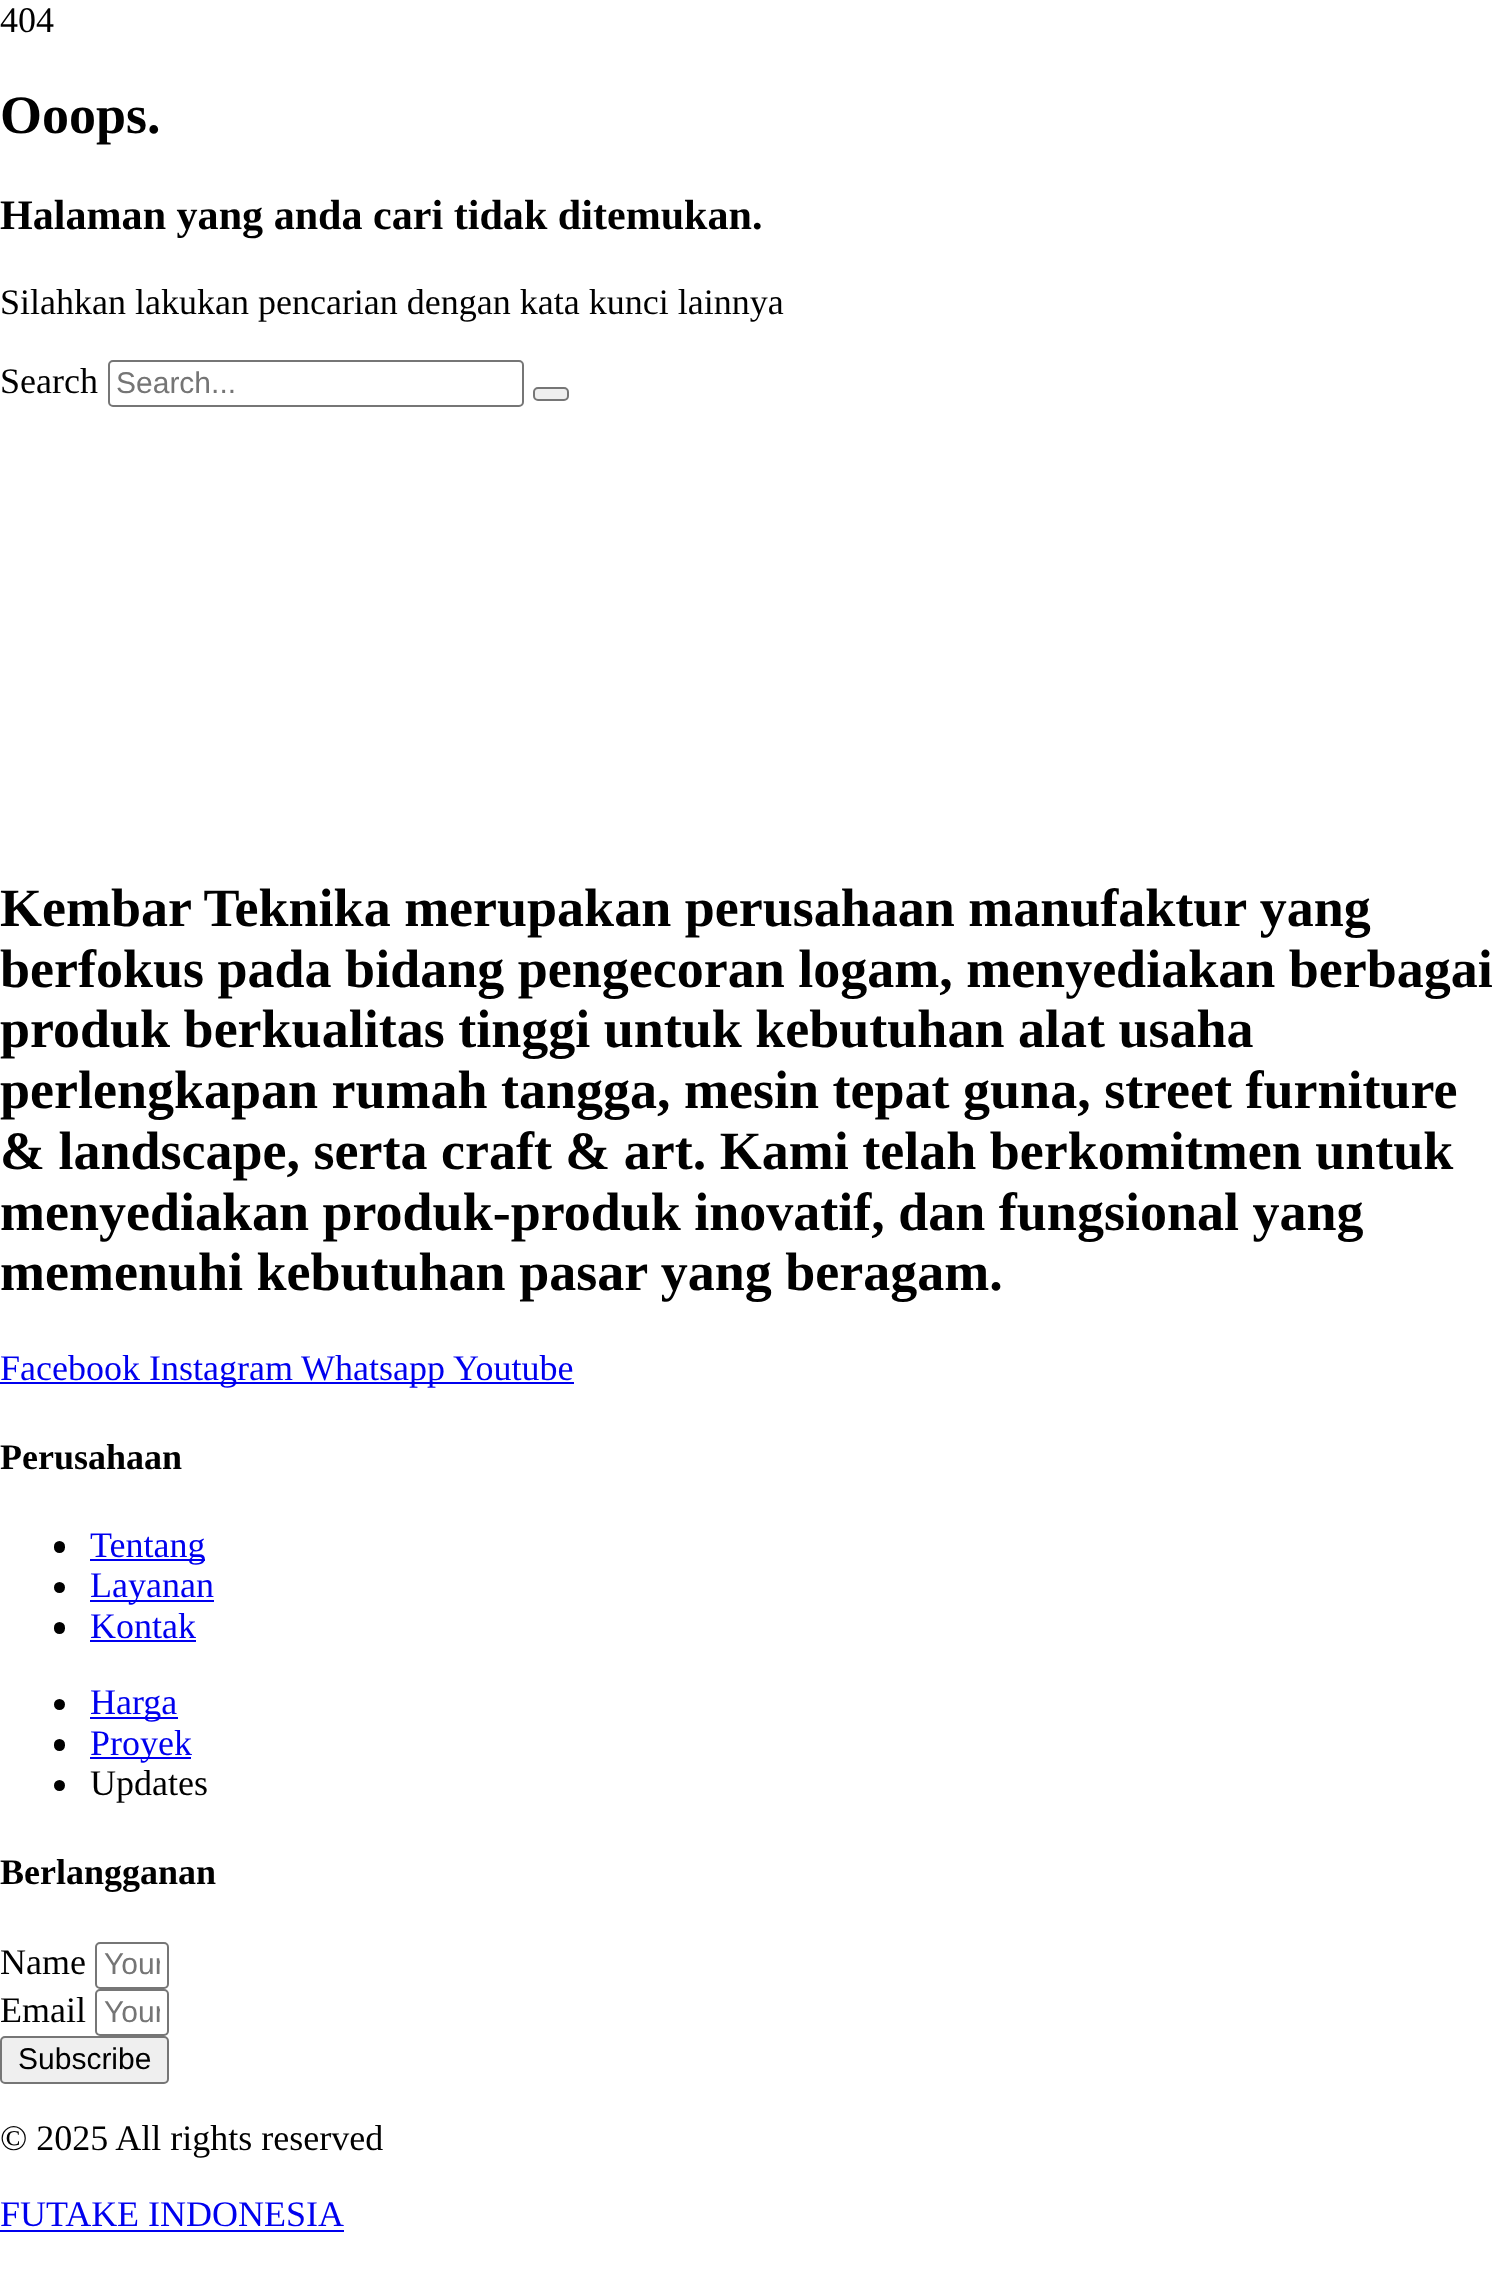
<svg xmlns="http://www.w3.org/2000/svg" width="1496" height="2271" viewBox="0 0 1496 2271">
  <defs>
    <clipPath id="clip1"><path d="M104 1949h56v33H104z"/></clipPath>
    <clipPath id="clip2"><path d="M104 1996h56v34H104z"/></clipPath>
  </defs>
  <rect width="100%" height="100%" fill="#fff"/>
  <rect x="109" y="361" width="414" height="45" rx="4" fill="none" stroke="#767676" stroke-width="2"/>
  <rect x="534" y="388" width="34" height="12" rx="4" fill="#efefef" stroke="#767676" stroke-width="2"/>
  <path d="M0 1382h574v2H0z" fill="#00e"/>
  <rect x="54" y="1541" width="11" height="12" rx="5.5" fill="#000"/>
  <path d="M90 1559h115v2H90z" fill="#00e"/>
  <circle cx="59.5" cy="1587.5" r="5.5" fill="#000"/>
  <path d="M90 1600h124v2H90z" fill="#00e"/>
  <rect x="54" y="1622" width="11" height="12" rx="5.5" fill="#000"/>
  <path d="M90 1640h106v2H90z" fill="#00e"/>
  <circle cx="59.5" cy="1704.5" r="5.5" fill="#000"/>
  <path d="M90 1717h88v2H90z" fill="#00e"/>
  <rect x="54" y="1739" width="11" height="12" rx="5.5" fill="#000"/>
  <path d="M90 1757h101v2H90z" fill="#00e"/>
  <circle cx="59.5" cy="1785.5" r="5.5" fill="#000"/>
  <rect x="96" y="1943" width="72" height="45" rx="4" fill="none" stroke="#767676" stroke-width="2"/>
  <rect x="96" y="1990" width="72" height="45" rx="4" fill="none" stroke="#767676" stroke-width="2"/>
  <rect x="1" y="2037" width="167" height="46" rx="4" fill="#efefef" stroke="#767676" stroke-width="2"/>
  <path d="M0 2230h344v2H0z" fill="#00e"/>
  <text x="0" y="32" font-family="Liberation Serif" font-size="36" fill="#000">404</text>
  <text x="0" y="133" font-family="Liberation Serif" font-size="54" font-weight="bold" fill="#000">Ooops.</text>
  <text x="0" y="229" font-family="Liberation Serif" font-size="42.1" font-weight="bold" fill="#000">Halaman yang anda cari tidak ditemukan.</text>
  <g font-family="Liberation Serif" font-size="36" fill="#000">
    <text x="0" y="314">Silahkan lakukan pencarian dengan kata kunci lainnya</text>
    <text x="0" y="393">Search</text>
  </g>
  <text x="116" y="393" font-family="Liberation Sans" font-size="30" fill="#757575">Search...</text>
  <g font-family="Liberation Serif" font-size="54" font-weight="bold" fill="#000">
    <text x="0" y="926">Kembar Teknika merupakan perusahaan manufaktur yang</text>
    <text x="0" y="987">berfokus pada bidang pengecoran logam, menyediakan berbagai</text>
    <text x="0" y="1047">produk berkualitas tinggi untuk kebutuhan alat usaha</text>
    <text x="0" y="1108">perlengkapan rumah tangga, mesin tepat guna, street furniture</text>
    <text x="0" y="1169">&amp; landscape, serta craft &amp; art. Kami telah berkomitmen untuk</text>
    <text x="0" y="1230">menyediakan produk-produk inovatif, dan fungsional yang</text>
    <text x="0" y="1290">memenuhi kebutuhan pasar yang beragam.</text>
  </g>
  <g font-family="Liberation Serif" font-size="36" fill="#00e">
    <text x="0" y="1380">Facebook Instagram</text>
    <text x="301" y="1380">Whatsapp</text>
    <text x="453" y="1380">Youtube</text>
  </g>
  <text x="0" y="1469" font-family="Liberation Serif" font-size="36" font-weight="bold" fill="#000">Perusahaan</text>
  <g font-family="Liberation Serif" font-size="36" fill="#00e">
    <text x="90" y="1557">Tentang</text>
    <text x="90" y="1597">Layanan</text>
    <text x="90" y="1638">Kontak</text>
    <text x="90" y="1714">Harga</text>
    <text x="90" y="1755">Proyek</text>
  </g>
  <text x="90" y="1795" font-family="Liberation Serif" font-size="36" fill="#000">Updates</text>
  <text x="0" y="1884" font-family="Liberation Serif" font-size="36" font-weight="bold" fill="#000">Berlangganan</text>
  <text x="0" y="1974" font-family="Liberation Serif" font-size="36" fill="#000">Name</text>
  <g clip-path="url(#clip1)">
    <text x="104" y="1974" font-family="Liberation Sans" font-size="30" fill="#757575">Your</text>
  </g>
  <text x="0" y="2022" font-family="Liberation Serif" font-size="36" fill="#000">Email</text>
  <g clip-path="url(#clip2)">
    <text x="104" y="2022" font-family="Liberation Sans" font-size="30" fill="#757575">Your</text>
  </g>
  <text x="18" y="2069" font-family="Liberation Sans" font-size="30" fill="#000">Subscribe</text>
  <text x="0" y="2150" font-family="Liberation Serif" font-size="36" fill="#000">© 2025 All rights reserved</text>
  <text x="0" y="2226" font-family="Liberation Serif" font-size="36" fill="#00e">FUTAKE INDONESIA</text>
</svg>
